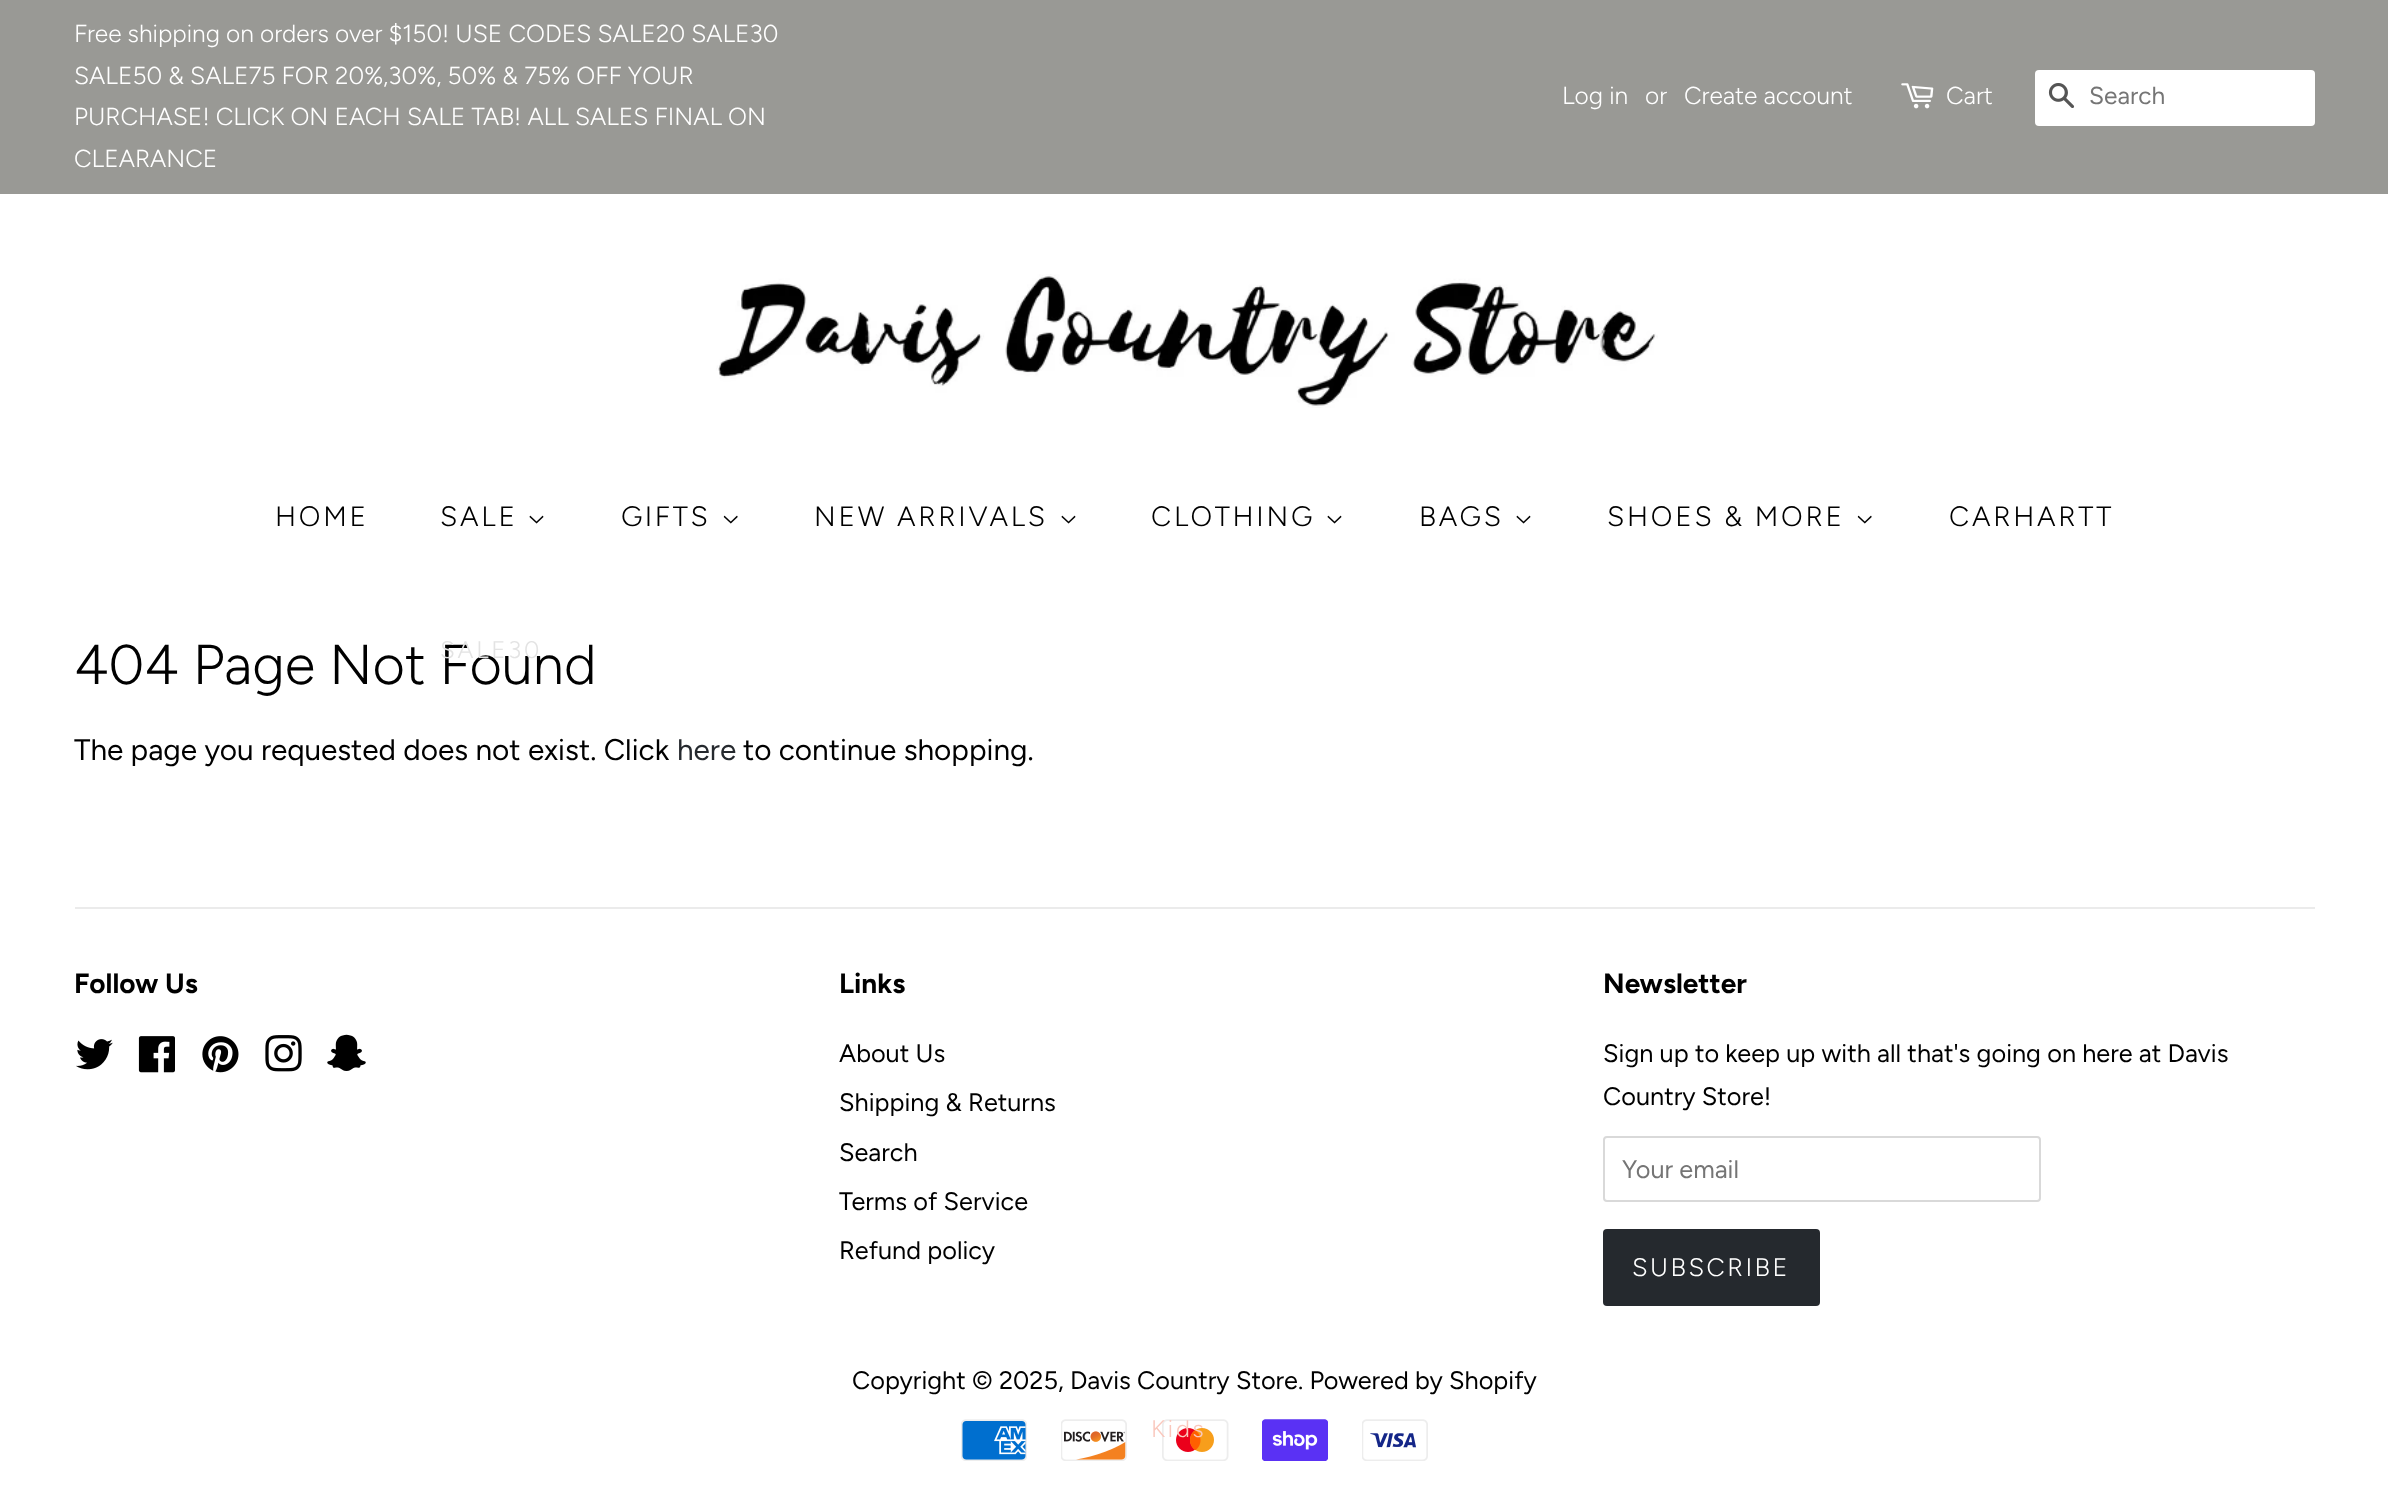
<svg xmlns="http://www.w3.org/2000/svg" width="2388" height="1499" viewBox="0 0 2388 1499">
  <rect width="100%" height="100%" fill="#fff"/>
  <path d="M0 0h2388v194H0z" fill="#999995"/>
  <image x="1901" y="83" width="33" height="26" href="img/1.png"/>
  <rect x="2035" y="70" width="280" height="56" rx="4" fill="#fff"/>
  <image x="2048" y="83" width="27" height="25" href="img/2.png"/>
  <image x="716" y="274" width="942" height="134" href="img/3.png"/>
  <image x="529" y="515" width="15" height="9" href="img/4.png"/>
  <image x="723" y="515" width="15" height="9" href="img/5.png"/>
  <image x="1061" y="515" width="15" height="9" href="img/4.png"/>
  <image x="1327" y="515" width="15" height="9" href="img/4.png"/>
  <image x="1516" y="515" width="15" height="9" href="img/4.png"/>
  <image x="1857" y="515" width="15" height="9" href="img/5.png"/>
  <path d="M75 907h2240v2H75z" fill="#ebebeb"/>
  <image x="76" y="1039" width="37" height="31" href="img/6.png"/>
  <image x="138" y="1036" width="37" height="37" href="img/7.png"/>
  <image x="202" y="1036" width="37" height="37" href="img/8.png"/>
  <image x="265" y="1035" width="37" height="37" href="img/9.png"/>
  <image x="327" y="1034" width="39" height="37" href="img/10.png"/>
  <rect x="1604" y="1137" width="436" height="64" rx="3" fill="none" stroke="#d9d9d9" stroke-width="2"/>
  <rect x="1603" y="1229" width="217" height="77" rx="4" fill="#25292e"/>
  <image x="961" y="1419" width="66" height="42" href="img/11.png"/>
  <image x="1061" y="1419" width="66" height="42" href="img/12.png"/>
  <image x="1162" y="1419" width="67" height="42" href="img/13.png"/>
  <image x="1262" y="1419" width="66" height="42" href="img/14.png"/>
  <image x="1362" y="1419" width="66" height="42" href="img/15.png"/>
  <g font-family="Figtree" font-size="24.5" font-weight="300" fill="#fff">
    <text x="74" y="42">Free shipping on orders over $150! USE CODES SALE20 SALE30</text>
    <text x="74" y="84">SALE50 &amp; SALE75 FOR 20%,30%, 50% &amp; 75% OFF YOUR</text>
    <text x="74" y="125">PURCHASE! CLICK ON EACH SALE TAB! ALL SALES FINAL ON</text>
    <text x="74" y="167">CLEARANCE</text>
    <text x="1562" y="104">Log in</text>
    <text x="1645" y="104">or</text>
    <text x="1684" y="104">Create account</text>
    <text x="1946" y="104">Cart</text>
  </g>
  <text x="2089" y="104" font-family="Figtree" font-size="24.5" fill="#757575">Search</text>
  <g font-family="Figtree" font-size="28" font-weight="300" letter-spacing="2.75" fill="#000">
    <text x="275" y="526">HOME</text>
    <text x="440" y="526">SALE</text>
    <text x="621" y="526">GIFTS</text>
    <text x="814" y="526">NEW ARRIVALS</text>
    <text x="1151" y="526">CLOTHING</text>
  </g>
  <text x="1151" y="1437" font-family="Figtree" font-size="24" font-weight="300" letter-spacing="2.75" fill="#fac7bc">Kids</text>
  <g font-family="Figtree" font-size="28" font-weight="300" letter-spacing="2.75" fill="#000">
    <text x="1419" y="526">BAGS</text>
    <text x="1607" y="526">SHOES &amp; MORE</text>
    <text x="1949" y="526">CARHARTT</text>
  </g>
  <text x="74" y="684" font-family="Figtree" font-size="56" font-weight="300" fill="#000">404 Page Not Found</text>
  <text x="440" y="658" font-family="Figtree" font-size="24" font-weight="300" letter-spacing="2.75" fill="#e3e3e3">SALE30</text>
  <text x="74" y="760" font-family="Figtree" font-size="29.75" fill="#000">The page you requested does not exist. Click</text>
  <text x="677" y="760" font-family="Figtree" font-size="29.75" fill="#25292e">here</text>
  <text x="743" y="760" font-family="Figtree" font-size="29.75" fill="#000">to continue shopping.</text>
  <g font-family="Figtree" font-size="28" font-weight="bold" fill="#000">
    <text x="74" y="993">Follow Us</text>
    <text x="839" y="993">Links</text>
  </g>
  <g font-family="Figtree" font-size="25.3" fill="#000">
    <text x="839" y="1062">About Us</text>
    <text x="839" y="1111">Shipping &amp; Returns</text>
    <text x="839" y="1161">Search</text>
    <text x="839" y="1210">Terms of Service</text>
    <text x="839" y="1259">Refund policy</text>
  </g>
  <text x="1603" y="993" font-family="Figtree" font-size="28" font-weight="bold" fill="#000">Newsletter</text>
  <g font-family="Figtree" font-size="25.3" fill="#000">
    <text x="1603" y="1062">Sign up to keep up with all that's going on here at Davis</text>
    <text x="1603" y="1105">Country Store!</text>
  </g>
  <text x="1622" y="1178" font-family="Figtree" font-size="25.3" fill="#757575">Your email</text>
  <text x="1632" y="1276" font-family="Figtree" font-size="25.3" font-weight="300" letter-spacing="2.5" fill="#fff">SUBSCRIBE</text>
  <text x="852" y="1389" font-family="Figtree" font-size="25.3" fill="#000">Copyright © 2025, Davis Country Store. Powered by Shopify</text>
</svg>
